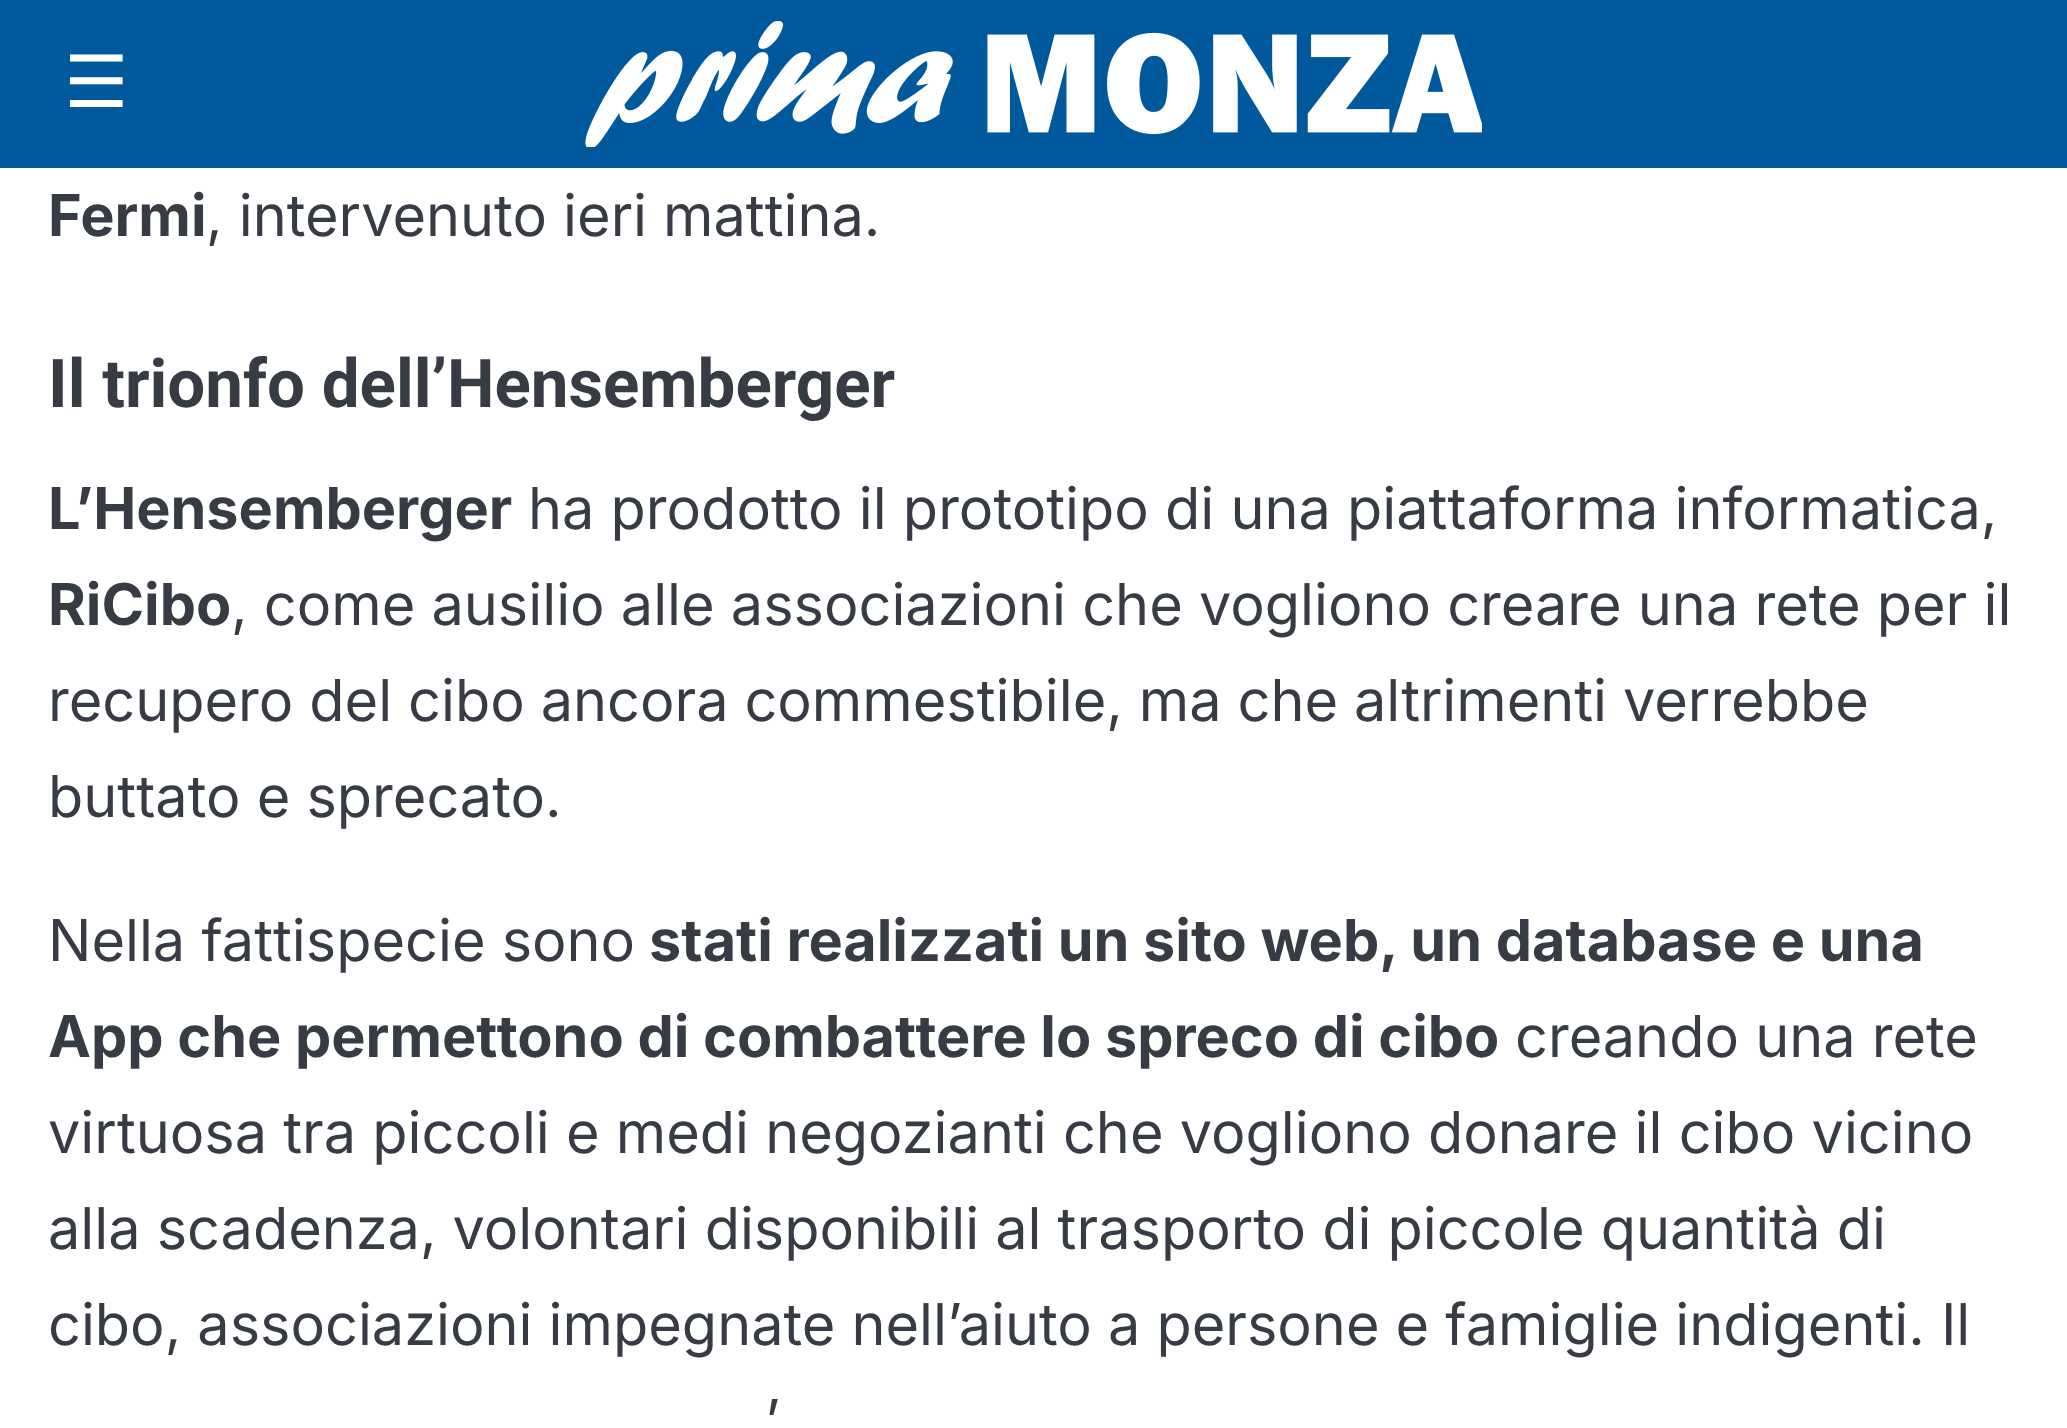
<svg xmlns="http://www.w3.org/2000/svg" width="2067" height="1428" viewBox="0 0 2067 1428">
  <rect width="100%" height="100%" fill="#fff"/>
  <path d="M0 0h2067v168H0z" fill="#00599c"/>
  <image x="585" y="21" width="897" height="126" href="img/1.png"/>
  <text x="64" y="107" font-family="DejaVu Sans" font-size="72" fill="#fff">☰</text>
  <text x="48" y="236" font-family="Inter" font-size="57.6" font-weight="bold" fill="#373c44">Fermi</text>
  <text x="206" y="236" font-family="Inter" font-size="57.6" fill="#373c44">, intervenuto ieri mattina.</text>
  <text x="48" y="407" font-family="Roboto" font-size="67.25" font-weight="bold" fill="#373c44">Il trionfo dell’Hensemberger</text>
  <text x="48" y="529" font-family="Inter" font-size="57.6" font-weight="bold" fill="#373c44">L’Hensemberger</text>
  <text x="528" y="529" font-family="Inter" font-size="57.6" fill="#373c44">ha prodotto il prototipo di una piattaforma informatica,</text>
  <text x="48" y="625" font-family="Inter" font-size="57.6" font-weight="bold" fill="#373c44">RiCibo</text>
  <g font-family="Inter" font-size="57.6" fill="#373c44">
    <text x="231" y="625">, come ausilio alle associazioni che vogliono creare una rete per il</text>
    <text x="48" y="721" word-spacing="-0.25">recupero del cibo ancora commestibile, ma che altrimenti verrebbe</text>
    <text x="48" y="817">buttato e sprecato.</text>
    <text x="48" y="961">Nella fattispecie sono</text>
  </g>
  <g font-family="Inter" font-size="57.6" font-weight="bold" fill="#373c44">
    <text x="649" y="961">stati realizzati un sito web, un database e una</text>
    <text x="48" y="1057">App che permettono di combattere lo spreco di cibo</text>
  </g>
  <g font-family="Inter" font-size="57.6" fill="#373c44">
    <text x="1515" y="1057">creando una rete</text>
    <text x="48" y="1153">virtuosa tra piccoli e medi negozianti che vogliono donare il cibo vicino</text>
    <text x="48" y="1249" word-spacing="-0.1">alla scadenza, volontari disponibili al trasporto di piccole quantità di</text>
    <text x="48" y="1345" word-spacing="-0.1">cibo, associazioni impegnate nell’aiuto a persone e famiglie indigenti. Il</text>
    <text x="765" y="1441">’</text>
  </g>
</svg>
